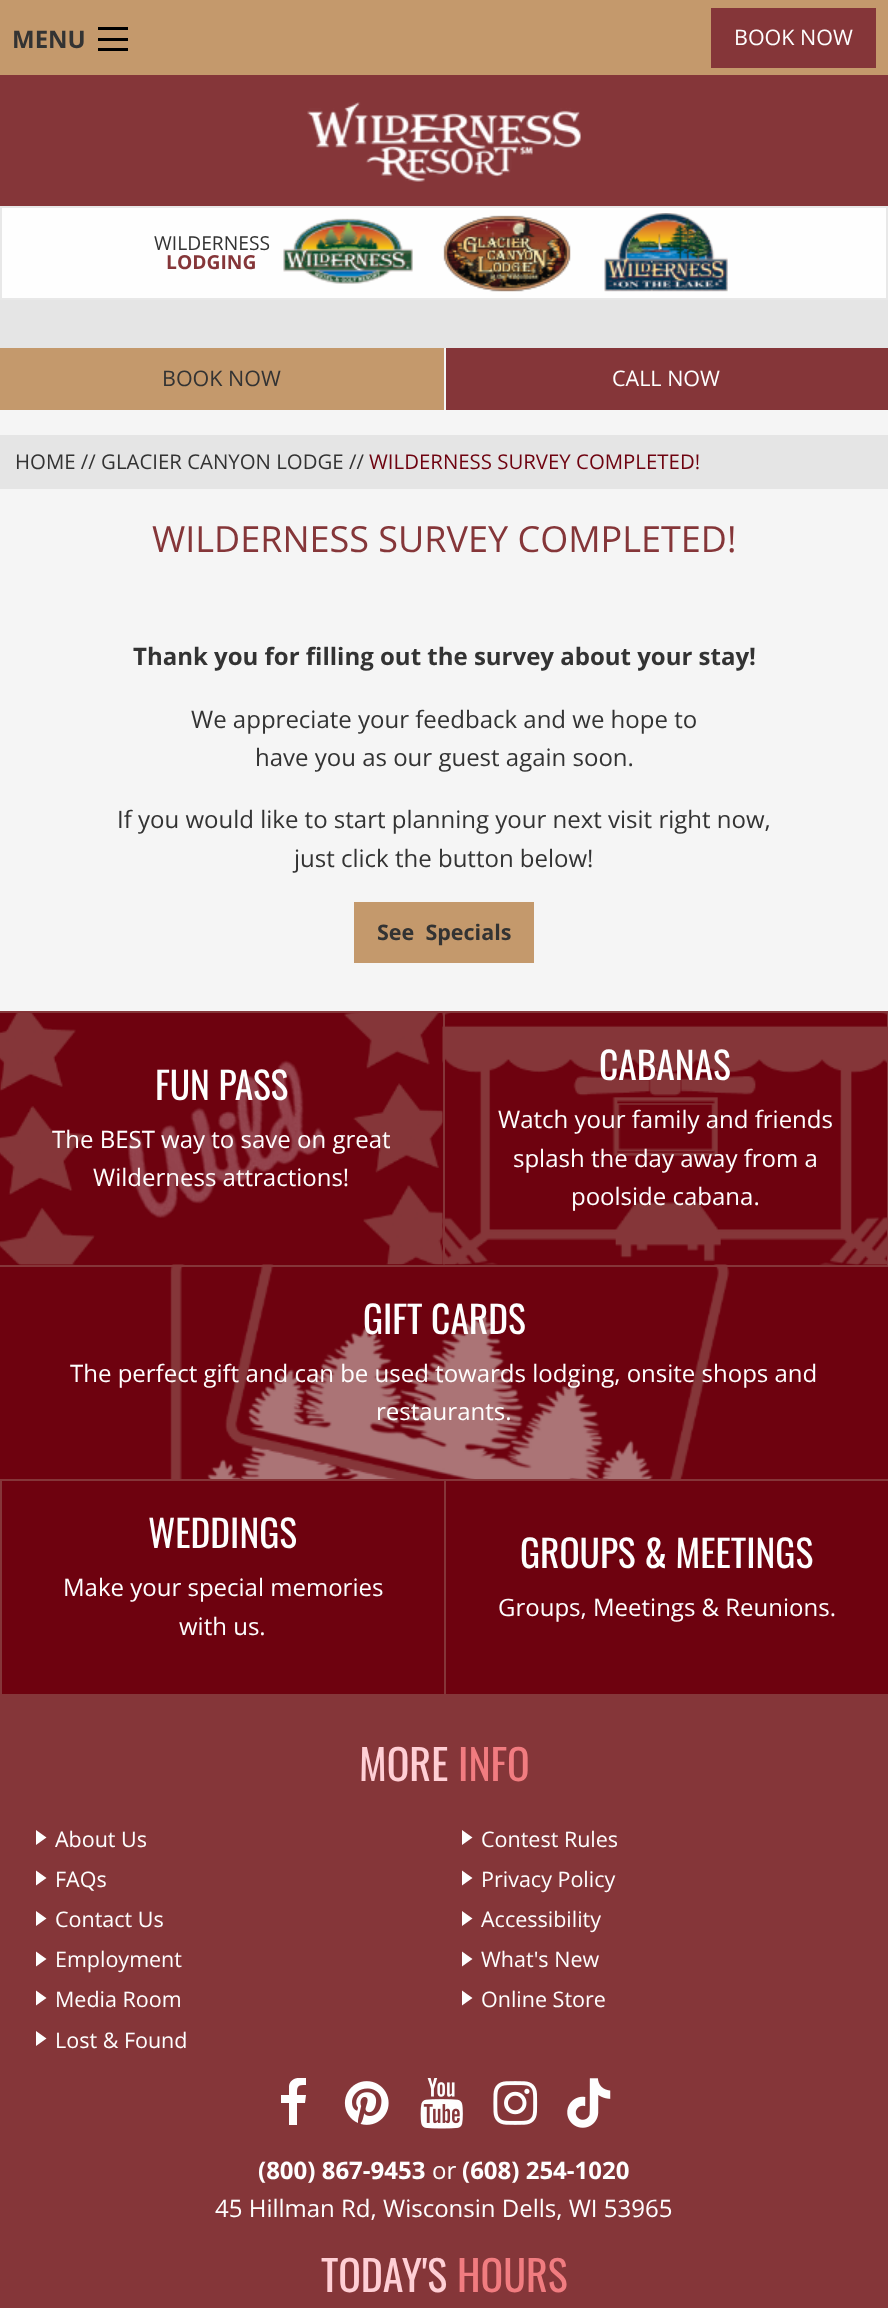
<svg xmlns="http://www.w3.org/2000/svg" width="888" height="2308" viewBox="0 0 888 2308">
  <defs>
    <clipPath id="clip1"><path d="M269 2078h49v51H269z"/></clipPath>
  </defs>
  <rect width="100%" height="100%" fill="#f5f5f5"/>
  <path d="M0 0h888v75H0z" fill="#c4996c"/>
  <path d="M98 48h30v3H98z" fill="#000"/>
  <path d="M98 38h30v3H98z" fill="#000"/>
  <path d="M98 27h30v3H98z" fill="#000"/>
  <path d="M711 8h165v60H711z" fill="#853639"/>
  <path d="M0 75h888v131H0z" fill="#853639"/>
  <image x="307" y="102" width="274" height="80" href="img/1.png"/>
  <path d="M1 207h886v92H1z" fill="#fefefe" stroke="#e8e8e8" stroke-width="2"/>
  <image x="283" y="218" width="130" height="66" href="img/2.png"/>
  <image x="443" y="215" width="128" height="77" href="img/3.png"/>
  <image x="604" y="213" width="124" height="79" href="img/4.png"/>
  <path d="M0 300h888v48H0z" fill="#e5e5e5"/>
  <path d="M0 348h444v62H0z" fill="#c4996c"/>
  <path d="M446 348h442v62H446z" fill="#853639"/>
  <path d="M0 435h888v54H0z" fill="#e5e5e5"/>
  <path d="M354 902h180v61H354z" fill="#c4996c"/>
  <path d="M0 1013h888v681H0z" fill="#6e020f"/>
  <image x="0" y="1013" width="443" height="252" href="img/5.png"/>
  <path d="M0 1011h443v2H0z" fill="#853639"/>
  <image x="442" y="1011" width="445" height="254" href="img/6.png"/>
  <path d="M443 1011h445v2H443z" fill="#853639"/>
  <path d="M887 1011h1v254H887z" fill="#853639"/>
  <path d="M443 1011h2v254H443z" fill="#853639"/>
  <image x="170" y="1264" width="560" height="215" href="img/7.png"/>
  <path d="M0 1265h888v2H0z" fill="#853639"/>
  <path d="M0 1479h888v2H0z" fill="#853639"/>
  <path d="M0 1479h2v215H0z" fill="#853639"/>
  <path d="M444 1479h2v215H444z" fill="#853639"/>
  <path d="M0 1694h888v614H0z" fill="#853639"/>
  <path d="M36 1845V1830L46.5 1837.5Z" fill="#fefefe"/>
  <path d="M462 1845V1830L472.5 1837.5Z" fill="#fefefe"/>
  <path d="M36 1885.5V1870.5L46.5 1878Z" fill="#fefefe"/>
  <path d="M462 1885.5V1870.5L472.5 1878Z" fill="#fefefe"/>
  <path d="M36 1926V1911L46.5 1918.5Z" fill="#fefefe"/>
  <path d="M462 1926V1911L472.5 1918.5Z" fill="#fefefe"/>
  <path d="M36 1966.5V1951.5L46.5 1959Z" fill="#fefefe"/>
  <path d="M462 1966.5V1951.5L472.5 1959Z" fill="#fefefe"/>
  <path d="M36 2005.5V1990.5L46.5 1998Z" fill="#fefefe"/>
  <path d="M462 2005.5V1990.5L472.5 1998Z" fill="#fefefe"/>
  <path d="M36 2046V2031L46.5 2038.5Z" fill="#fefefe"/>
  <g clip-path="url(#clip1)">
    <path d="M306 2078V2085C297 2085 297 2086 297 2095H306L305 2103H297V2125H289V2103H281V2095H289V2086C290 2078 299 2077 306 2078Z" fill="#fefefe"/>
  </g>
  <image x="344" y="2081" width="45" height="44" href="img/8.png"/>
  <image x="420" y="2078" width="43" height="51" href="img/9.png"/>
  <image x="493" y="2081" width="45" height="44" href="img/10.png"/>
  <image x="567" y="2078" width="44" height="50" href="img/11.png"/>
  <text x="12" y="48" font-family="Open Sans" font-size="24" font-weight="bold" fill="#333">MENU</text>
  <text x="734" y="45" font-family="Open Sans" font-size="21.5" fill="#fefefe">BOOK NOW</text>
  <text x="154" y="250" font-family="Open Sans" font-size="19.25" fill="#333">WILDERNESS</text>
  <text x="166" y="269" font-family="Open Sans" font-size="19.25" font-weight="bold" fill="#853639">LODGING</text>
  <text x="162" y="386" font-family="Open Sans" font-size="21.5" fill="#333">BOOK NOW</text>
  <text x="612" y="386" font-family="Open Sans" font-size="21.5" fill="#fefefe">CALL NOW</text>
  <text x="15" y="469" font-family="Open Sans" font-size="20.4" fill="#333">HOME // GLACIER CANYON LODGE //</text>
  <text x="369" y="469" font-family="Open Sans" font-size="20.4" fill="#6e020f">WILDERNESS SURVEY COMPLETED!</text>
  <text x="152" y="552" font-family="Open Sans" font-size="36" fill="#853639">WILDERNESS SURVEY COMPLETED!</text>
  <text x="133" y="665" font-family="Open Sans" font-size="24" font-weight="bold" fill="#333">Thank you for filling out the survey about your stay!</text>
  <g font-family="Open Sans" font-size="24" fill="#333">
    <text x="191" y="728">We appreciate your feedback and we hope to</text>
    <text x="255" y="766">have you as our guest again soon.</text>
    <text x="117" y="828">If you would like to start planning your next visit right now,</text>
    <text x="294" y="867">just click the button below!</text>
  </g>
  <text x="377" y="940" font-family="Open Sans" font-size="21.5" font-weight="bold" fill="#333" xml:space="preserve">See  Specials</text>
  <text x="155" y="1100" font-family="Oswald" font-size="37.5" fill="#fefefe">FUN PASS</text>
  <g font-family="Open Sans" font-size="24" fill="#fefefe">
    <text x="52" y="1148">The BEST way to save on great</text>
    <text x="93" y="1186">Wilderness attractions!</text>
  </g>
  <text x="599" y="1080" font-family="Oswald" font-size="37.5" fill="#fefefe">CABANAS</text>
  <g font-family="Open Sans" font-size="24" fill="#fefefe">
    <text x="498" y="1128">Watch your family and friends</text>
    <text x="513" y="1167">splash the day away from a</text>
    <text x="571" y="1205">poolside cabana.</text>
  </g>
  <text x="363" y="1334" font-family="Oswald" font-size="37.5" fill="#fefefe">GIFT CARDS</text>
  <g font-family="Open Sans" font-size="24" fill="#fefefe">
    <text x="70" y="1382">The perfect gift and can be used towards lodging, onsite shops and</text>
    <text x="376" y="1420">restaurants.</text>
  </g>
  <text x="148" y="1548" font-family="Oswald" font-size="37.5" fill="#fefefe">WEDDINGS</text>
  <g font-family="Open Sans" font-size="24" fill="#fefefe">
    <text x="63" y="1596">Make your special memories</text>
    <text x="179" y="1635">with us.</text>
  </g>
  <text x="520" y="1568" font-family="Oswald" font-size="37.5" fill="#fefefe">GROUPS &amp; MEETINGS</text>
  <text x="498" y="1616" font-family="Open Sans" font-size="24" fill="#fefefe">Groups, Meetings &amp; Reunions.</text>
  <text x="359" y="1781" font-family="Oswald" font-size="42" fill="#ffcfd5">MORE</text>
  <text x="458" y="1781" font-family="Oswald" font-size="42" fill="#f17c80">INFO</text>
  <g font-family="Open Sans" font-size="21.5" fill="#fefefe">
    <text x="55" y="1847">About Us</text>
    <text x="481" y="1847">Contest Rules</text>
    <text x="55" y="1887">FAQs</text>
    <text x="481" y="1887">Privacy Policy</text>
    <text x="55" y="1927">Contact Us</text>
    <text x="481" y="1927">Accessibility</text>
    <text x="55" y="1967">Employment</text>
    <text x="481" y="1967">What's New</text>
    <text x="55" y="2007">Media Room</text>
    <text x="481" y="2007">Online Store</text>
    <text x="55" y="2048">Lost &amp; Found</text>
  </g>
  <text x="258" y="2179" font-family="Open Sans" font-size="24" font-weight="bold" fill="#fefefe">(800) 867-9453</text>
  <text x="432" y="2179" font-family="Open Sans" font-size="24" fill="#fefefe">or</text>
  <text x="462" y="2179" font-family="Open Sans" font-size="24" font-weight="bold" fill="#fefefe">(608) 254-1020</text>
  <text x="215" y="2217" font-family="Open Sans" font-size="24" fill="#fefefe">45 Hillman Rd, Wisconsin Dells, WI 53965</text>
  <text x="321" y="2292" font-family="Oswald" font-size="42" fill="#ffcfd5">TODAY'S</text>
  <text x="457" y="2292" font-family="Oswald" font-size="42" fill="#f17c80">HOURS</text>
</svg>
